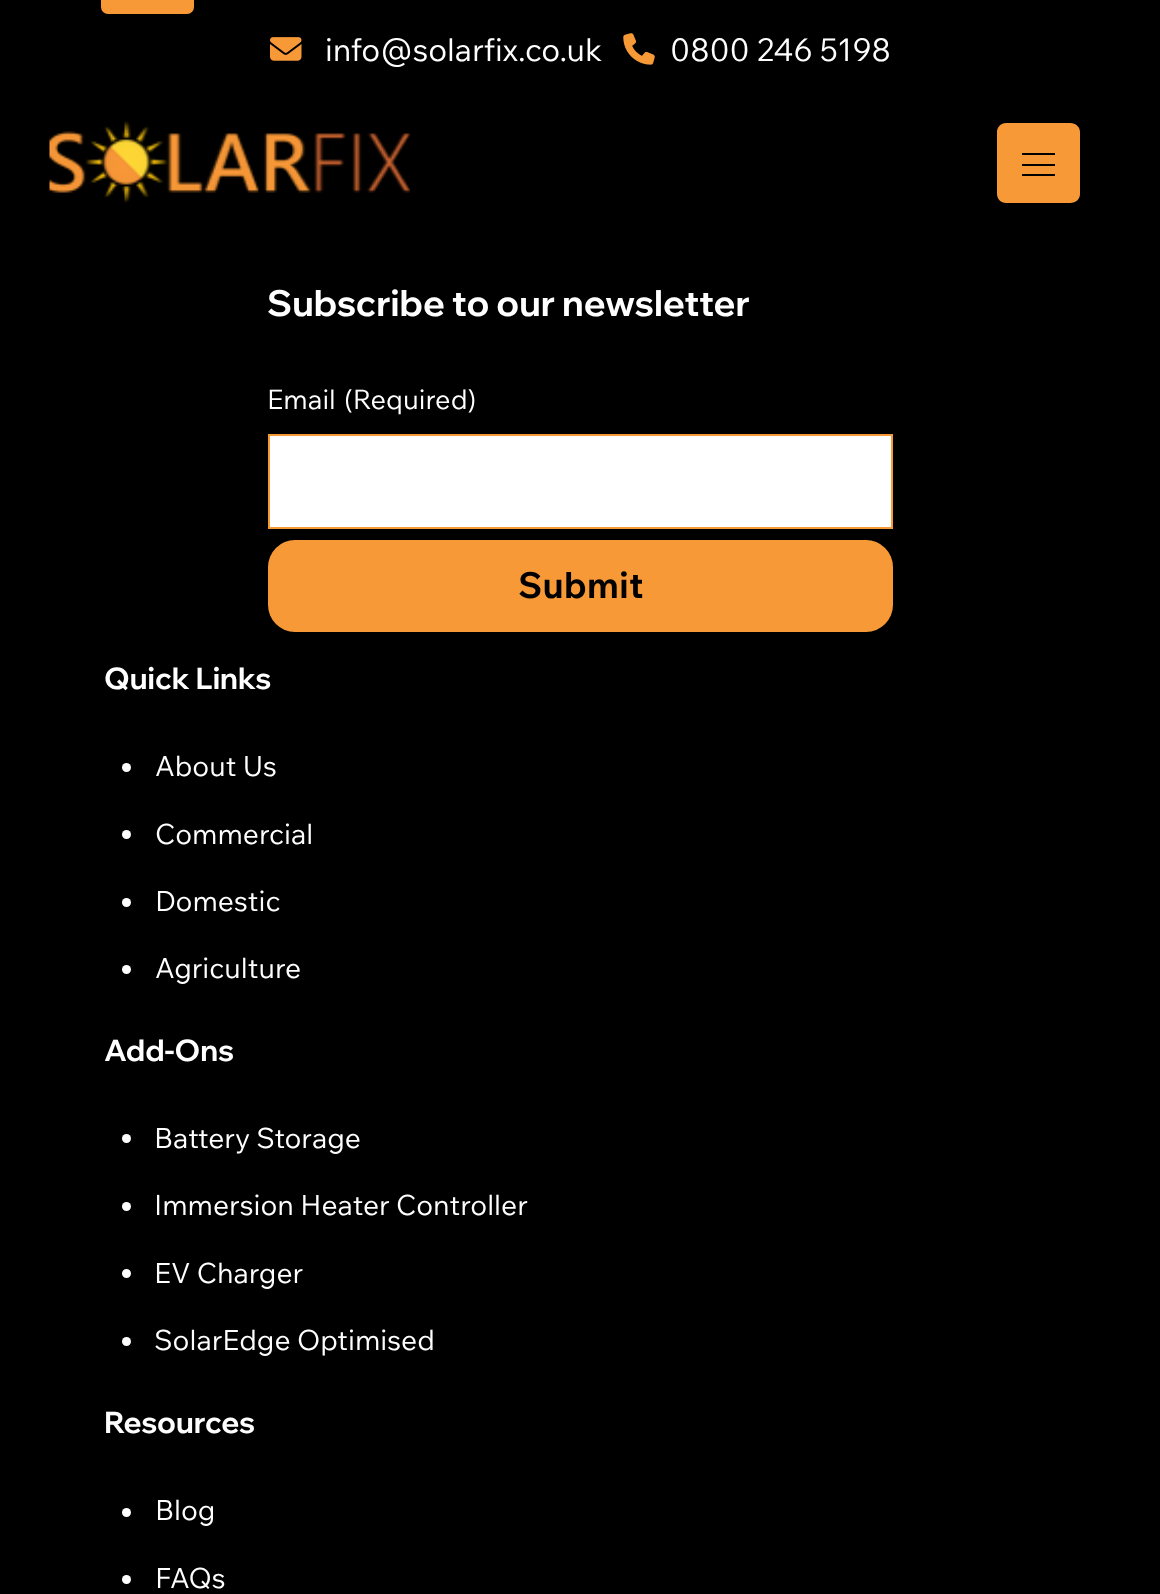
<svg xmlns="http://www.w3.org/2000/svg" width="1160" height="1594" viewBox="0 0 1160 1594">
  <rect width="100%" height="100%" fill="#000"/>
  <image x="270" y="37" width="32" height="24" href="img/1.png"/>
  <image x="623" y="33" width="32" height="32" href="img/2.png"/>
  <image x="49" y="121" width="361" height="82" href="img/3.png"/>
  <path d="M1080 132C1080 127 1076 123 1070 123H1006C1001 123 997 127 997 132V194C997 199 1001 203 1006 203H1070C1076 203 1080 199 1080 194ZM1055 176H1022V174H1055ZM1055 166H1022V164H1055ZM1055 155H1022V153H1055Z" fill="#f89938"/>
  <rect x="101" y="-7" width="93" height="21" rx="7" fill="#f89938"/>
  <path d="M269 435h623v93H269z" fill="#fff" stroke="#f89938" stroke-width="2"/>
  <rect x="268" y="540" width="625" height="92" rx="27" fill="#f89938"/>
  <circle cx="126.5" cy="767.5" r="4.5" fill="#fff"/>
  <circle cx="126.5" cy="834.5" r="4.5" fill="#fff"/>
  <circle cx="126.5" cy="902.5" r="4.5" fill="#fff"/>
  <circle cx="126.5" cy="969.5" r="4.5" fill="#fff"/>
  <circle cx="126.5" cy="1138.5" r="4.5" fill="#fff"/>
  <circle cx="126.5" cy="1206.5" r="4.5" fill="#fff"/>
  <circle cx="126.5" cy="1273.5" r="4.5" fill="#fff"/>
  <circle cx="126.5" cy="1341.5" r="4.5" fill="#fff"/>
  <circle cx="126.5" cy="1512.5" r="4.5" fill="#fff"/>
  <circle cx="126.5" cy="1579.5" r="4.5" fill="#fff"/>
  <g font-family="Wix Madefor Text" font-size="31.5" fill="#fff">
    <text x="325" y="61">info@solarfix.co.uk</text>
    <text x="670" y="61">0800 246 5198</text>
  </g>
  <text x="267" y="316" font-family="Wix Madefor Display" font-size="36" font-weight="bold" fill="#fff">Subscribe to our newsletter</text>
  <g font-family="Wix Madefor Text" font-size="27" fill="#fff">
    <text x="267" y="409">Email</text>
    <text x="344" y="409">(Required)</text>
  </g>
  <text x="518" y="598" font-family="Wix Madefor Text" font-size="36" font-weight="bold" fill="#000">Submit</text>
  <text x="104" y="689" font-family="Wix Madefor Display" font-size="29.75" font-weight="bold" fill="#fff">Quick Links</text>
  <g font-family="Wix Madefor Text" font-size="28.1" fill="#fff">
    <text x="155" y="776">About Us</text>
    <text x="155" y="844">Commercial</text>
    <text x="155" y="911">Domestic</text>
    <text x="155" y="978">Agriculture</text>
  </g>
  <text x="104" y="1061" font-family="Wix Madefor Display" font-size="29.75" font-weight="bold" fill="#fff">Add-Ons</text>
  <g font-family="Wix Madefor Text" font-size="28.1" fill="#fff">
    <text x="154" y="1148">Battery Storage</text>
    <text x="154" y="1215">Immersion Heater Controller</text>
    <text x="154" y="1283">EV Charger</text>
    <text x="154" y="1350">SolarEdge Optimised</text>
  </g>
  <text x="104" y="1433" font-family="Wix Madefor Display" font-size="29.75" font-weight="bold" fill="#fff">Resources</text>
  <g font-family="Wix Madefor Text" font-size="28.1" fill="#fff">
    <text x="155" y="1520">Blog</text>
    <text x="155" y="1588">FAQs</text>
  </g>
</svg>
